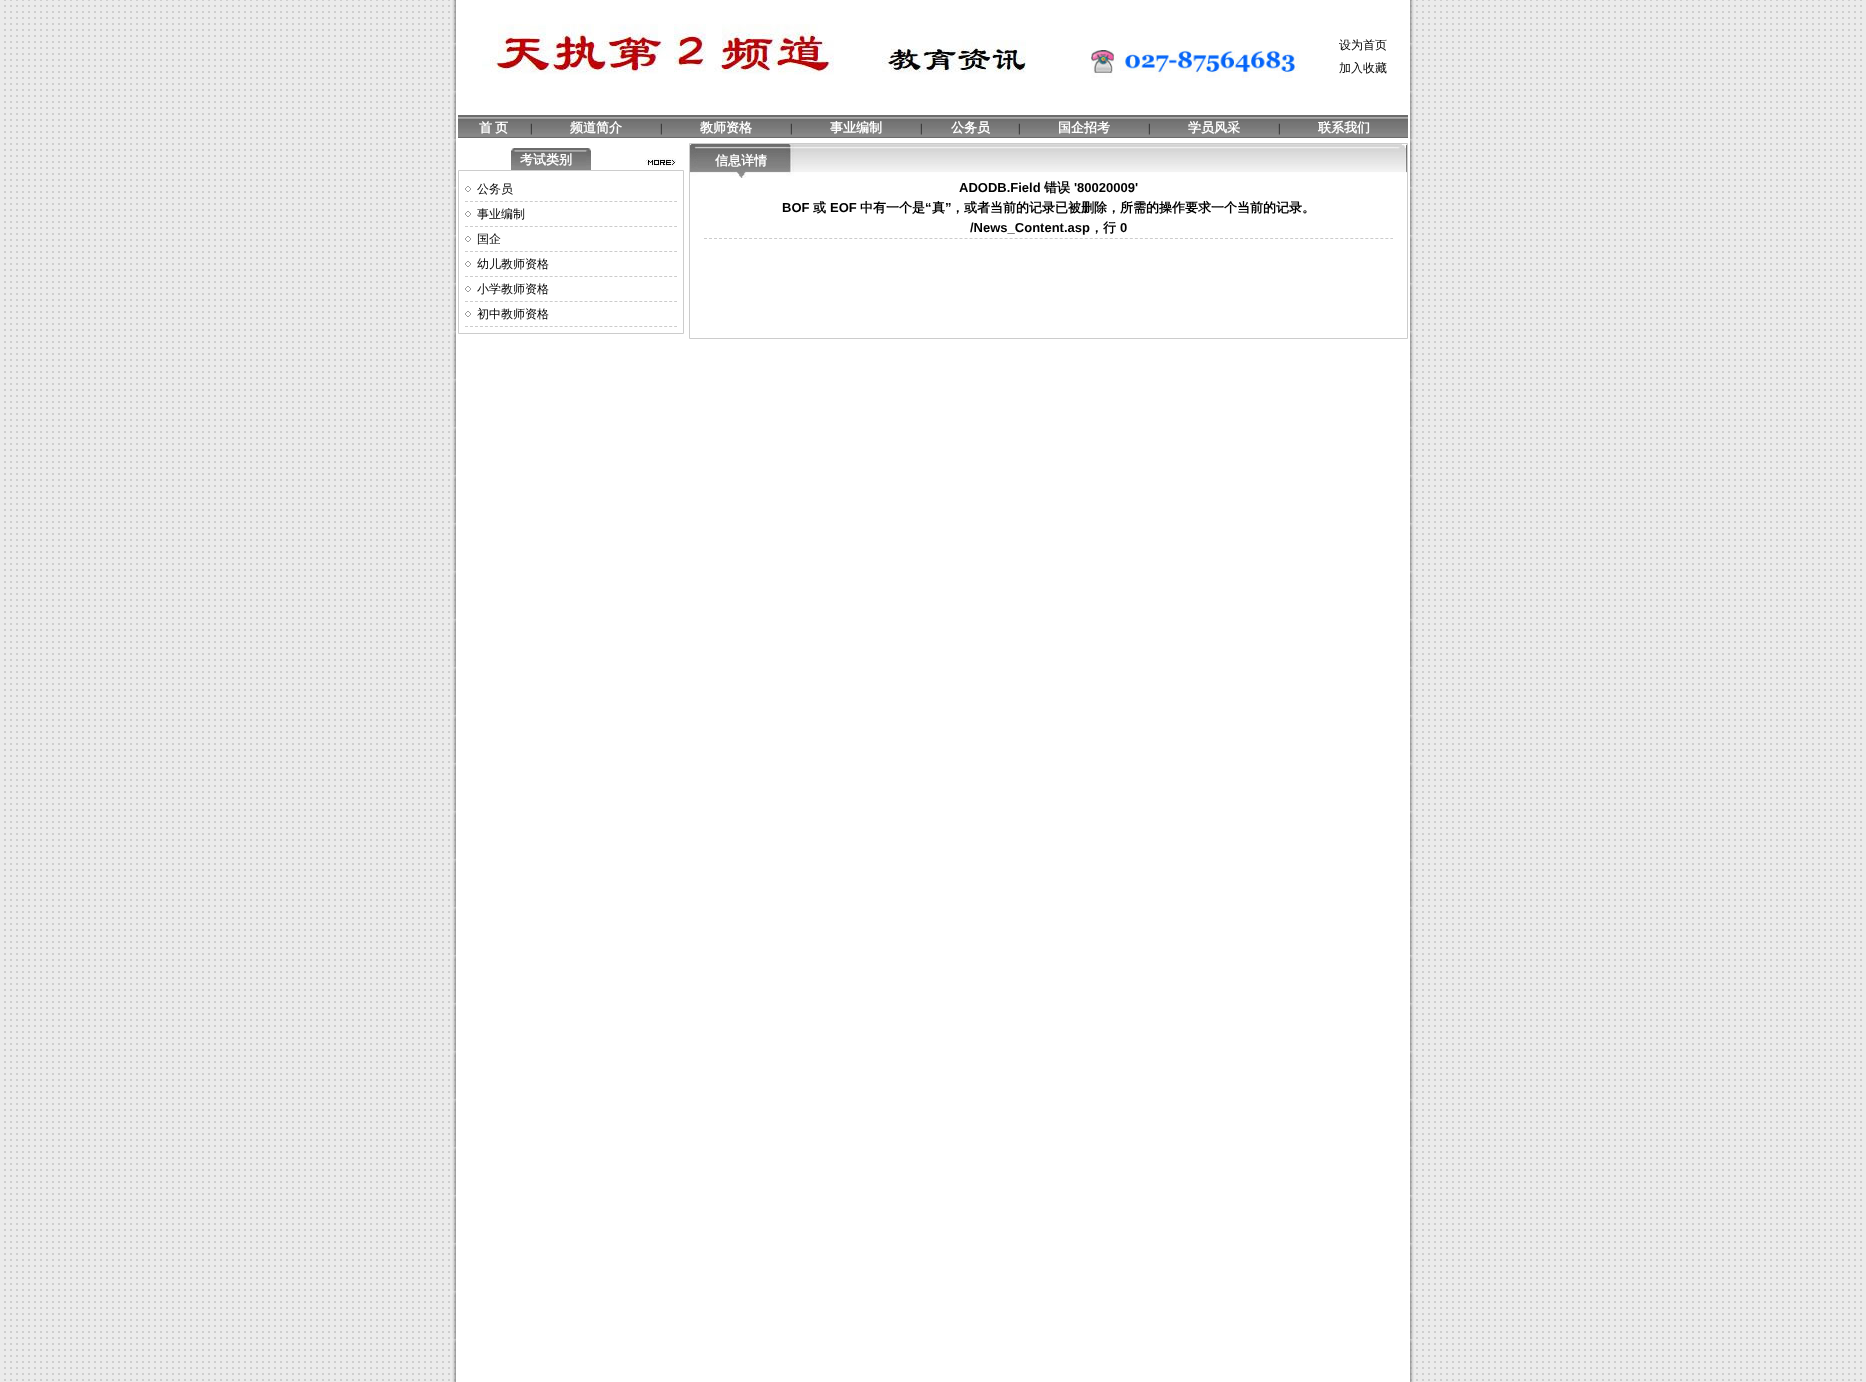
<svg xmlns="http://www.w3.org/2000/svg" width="1866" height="1382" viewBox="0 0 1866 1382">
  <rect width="100%" height="100%" fill="#fff"/>
  <image x="0" y="0" width="1866" height="1382" href="img/1.png"/>
  <image x="482" y="24" width="544" height="51" href="img/2.png"/>
  <image x="1091" y="50" width="209" height="28" href="img/3.png"/>
  <image x="458" y="115" width="950" height="23" href="img/4.png"/>
  <image x="511" y="148" width="4" height="22" href="img/5.png"/>
  <image x="515" y="148" width="71" height="22" href="img/6.png"/>
  <image x="586" y="148" width="5" height="22" href="img/7.png"/>
  <image x="644" y="158" width="32" height="10" href="img/8.png"/>
  <path d="M458.5 170.5h225v163H458.5z" fill="none" stroke="#ccc"/>
  <path d="M465 201.5H677" fill="none" stroke="#ccc" stroke-dasharray="3 1.98"/>
  <image x="465" y="186" width="6" height="6" href="img/9.png"/>
  <path d="M465 226.5H677" fill="none" stroke="#ccc" stroke-dasharray="3 1.98"/>
  <image x="465" y="211" width="6" height="6" href="img/9.png"/>
  <path d="M465 251.5H677" fill="none" stroke="#ccc" stroke-dasharray="3 1.98"/>
  <image x="465" y="236" width="6" height="6" href="img/9.png"/>
  <path d="M465 276.5H677" fill="none" stroke="#ccc" stroke-dasharray="3 1.98"/>
  <image x="465" y="261" width="6" height="6" href="img/9.png"/>
  <path d="M465 301.5H677" fill="none" stroke="#ccc" stroke-dasharray="3 1.98"/>
  <image x="465" y="286" width="6" height="6" href="img/9.png"/>
  <path d="M465 326.5H677" fill="none" stroke="#ccc" stroke-dasharray="3 1.98"/>
  <image x="465" y="311" width="6" height="6" href="img/9.png"/>
  <path d="M689.5 143.5h718v195H689.5z" fill="none" stroke="#ccc"/>
  <image x="690" y="144" width="717" height="34" href="img/10.png"/>
  <path d="M704 238.5H1393" fill="none" stroke="#ccc" stroke-dasharray="3 2.01"/>
  <g font-family="WenQuanYi Zen Hei" font-size="12" font-weight="500" fill="#000">
    <text x="1339" y="49">设为首页</text>
    <text x="1339" y="72">加入收藏</text>
  </g>
  <text x="479" y="132" word-spacing="-1" font-family="WenQuanYi Zen Hei" font-size="13" font-weight="bold" fill="#fff">首 页</text>
  <text x="530" y="132" font-family="Liberation Serif" font-size="12" fill="#000">|</text>
  <text x="570" y="132" font-family="WenQuanYi Zen Hei" font-size="13" font-weight="bold" fill="#fff">频道简介</text>
  <text x="660" y="132" font-family="Liberation Serif" font-size="12" fill="#000">|</text>
  <text x="700" y="132" font-family="WenQuanYi Zen Hei" font-size="13" font-weight="bold" fill="#fff">教师资格</text>
  <text x="790" y="132" font-family="Liberation Serif" font-size="12" fill="#000">|</text>
  <text x="830" y="132" font-family="WenQuanYi Zen Hei" font-size="13" font-weight="bold" fill="#fff">事业编制</text>
  <text x="920" y="132" font-family="Liberation Serif" font-size="12" fill="#000">|</text>
  <text x="951" y="132" font-family="WenQuanYi Zen Hei" font-size="13" font-weight="bold" fill="#fff">公务员</text>
  <text x="1018" y="132" font-family="Liberation Serif" font-size="12" fill="#000">|</text>
  <text x="1058" y="132" font-family="WenQuanYi Zen Hei" font-size="13" font-weight="bold" fill="#fff">国企招考</text>
  <text x="1148" y="132" font-family="Liberation Serif" font-size="12" fill="#000">|</text>
  <text x="1188" y="132" font-family="WenQuanYi Zen Hei" font-size="13" font-weight="bold" fill="#fff">学员风采</text>
  <text x="1278" y="132" font-family="Liberation Serif" font-size="12" fill="#000">|</text>
  <g font-family="WenQuanYi Zen Hei" font-size="13" font-weight="bold" fill="#fff">
    <text x="1318" y="132">联系我们</text>
    <text x="520" y="164">考试类别</text>
  </g>
  <g font-family="WenQuanYi Zen Hei" font-size="12" font-weight="500" fill="#000">
    <text x="477" y="193">公务员</text>
    <text x="477" y="218">事业编制</text>
    <text x="477" y="243">国企</text>
    <text x="477" y="268">幼儿教师资格</text>
    <text x="477" y="293">小学教师资格</text>
    <text x="477" y="318">初中教师资格</text>
  </g>
  <text x="715" y="165" font-family="WenQuanYi Zen Hei" font-size="13" font-weight="bold" fill="#fff">信息详情</text>
  <text x="959" y="192" font-family="Liberation Sans" font-size="13" font-weight="bold" fill="#000">ADODB.Field</text>
  <text x="1044" y="192" font-family="WenQuanYi Zen Hei" font-size="13" font-weight="bold" fill="#000">错误</text>
  <g font-family="Liberation Sans" font-size="13" font-weight="bold" fill="#000">
    <text x="1074" y="192">'80020009'</text>
    <text x="782" y="212">BOF</text>
  </g>
  <text x="813" y="212" font-family="WenQuanYi Zen Hei" font-size="13" font-weight="bold" fill="#000">或</text>
  <text x="830" y="212" font-family="Liberation Sans" font-size="13" font-weight="bold" fill="#000">EOF</text>
  <text x="860" y="212" font-family="WenQuanYi Zen Hei" font-size="13" font-weight="bold" fill="#000">中有一个是</text>
  <text x="925" y="212" font-family="Liberation Sans" font-size="13" font-weight="bold" fill="#000">“</text>
  <text x="932" y="212" font-family="WenQuanYi Zen Hei" font-size="13" font-weight="bold" fill="#000">真</text>
  <text x="945" y="212" font-family="Liberation Sans" font-size="13" font-weight="bold" fill="#000">”</text>
  <text x="951" y="212" font-family="WenQuanYi Zen Hei" font-size="13" font-weight="bold" fill="#000">，或者当前的记录已被删除，所需的操作要求一个当前的记录。</text>
  <text x="970" y="232" font-family="Liberation Sans" font-size="13" font-weight="bold" fill="#000">/News_Content.asp</text>
  <text x="1090" y="232" font-family="WenQuanYi Zen Hei" font-size="13" font-weight="bold" fill="#000">，行</text>
  <text x="1120" y="232" font-family="Liberation Sans" font-size="13" font-weight="bold" fill="#000">0</text>
</svg>
